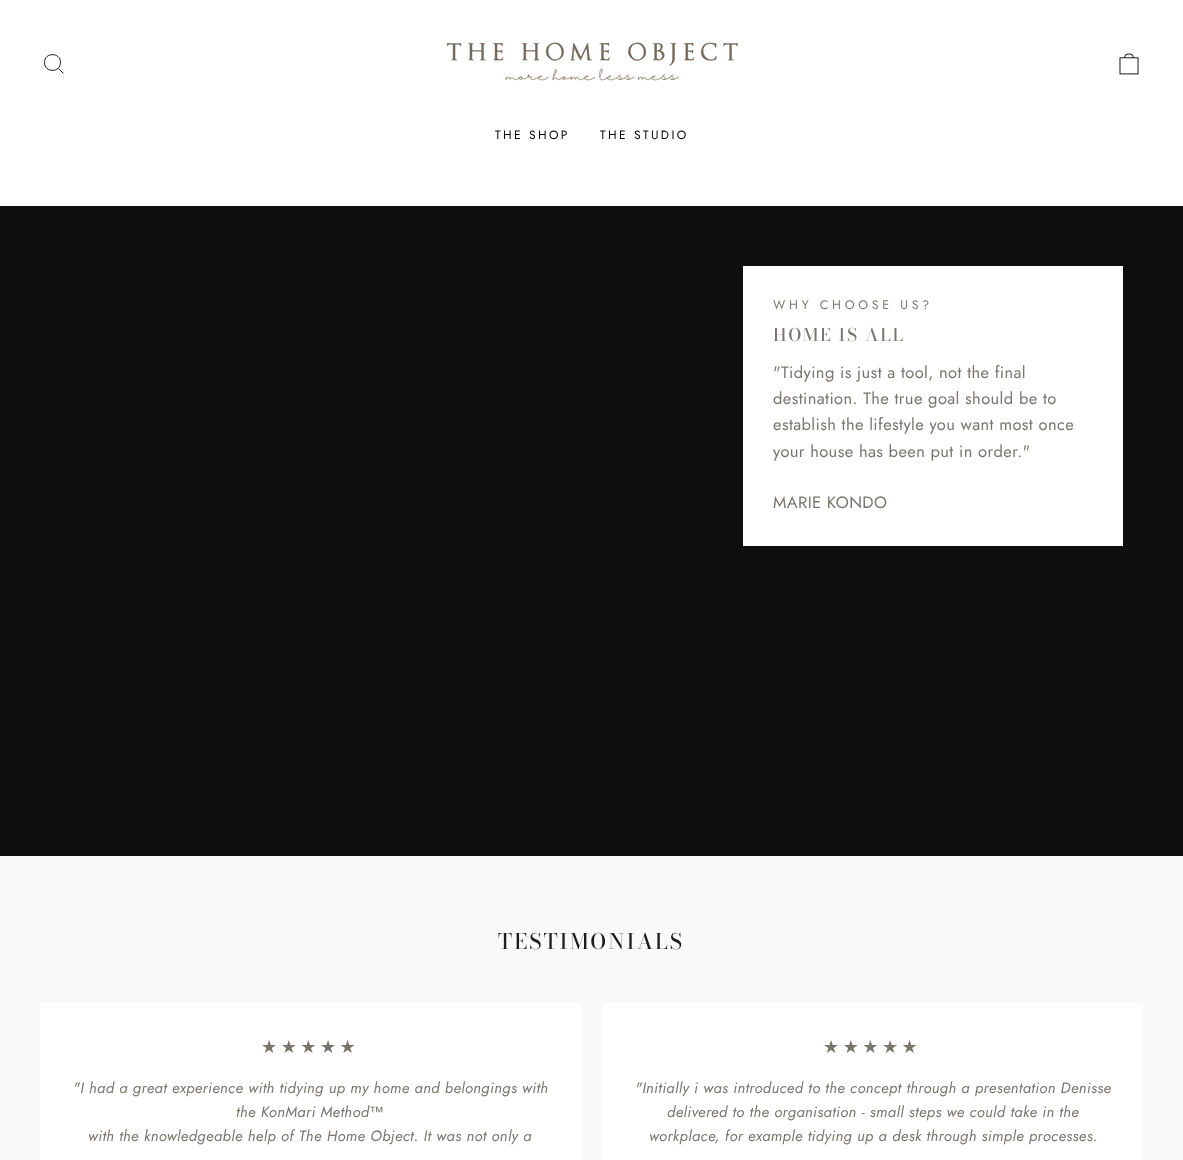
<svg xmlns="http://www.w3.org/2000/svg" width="1183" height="1160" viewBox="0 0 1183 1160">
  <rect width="100%" height="100%" fill="#fff"/>
  <path d="M0 0h1183v162H0z" fill="#00000033" filter="blur(0.5px)"/>
  <path d="M0 0h1183v162H0z" fill="#fff"/>
  <path d="M60.5 62.5C60.5 73 44.5 73 44.5 62.5C44.5 52 60.5 52 60.5 62.5ZM63.5 73.5L58.5 68.5" fill="none" stroke="#000" stroke-width="0.9"/>
  <image x="446" y="42" width="292" height="39" href="img/1.png"/>
  <image x="1119" y="53" width="20" height="22" href="img/2.png"/>
  <path d="M0 206h1183v650H0z" fill="#0f0f0f"/>
  <path d="M743 266h380v280H743z" fill="#fff"/>
  <path d="M0 856h1183v304H0z" fill="#f9f9f9"/>
  <path d="M40 1003h541v157H40z" fill="#fff"/>
  <path d="M603 1003h540v157H603z" fill="#fff"/>
  <g font-family="Jost" font-size="12" letter-spacing="2.4" fill="#000">
    <text x="495" y="139">THE SHOP</text>
    <text x="600" y="139">THE STUDIO</text>
  </g>
  <text x="773" y="309" font-family="Jost" font-size="12.4" letter-spacing="3.75" fill="#78756c">WHY CHOOSE US?</text>
  <text x="773" y="341" font-family="'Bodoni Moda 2'" font-size="17.5" font-weight="500" letter-spacing="1.75" fill="#78756c">HOME IS ALL</text>
  <g font-family="Jost" font-size="16.5" letter-spacing="0.38" fill="#78756c">
    <text x="773" y="378">"Tidying is just a tool, not the final</text>
    <text x="773" y="404">destination. The true goal should be to</text>
    <text x="773" y="430">establish the lifestyle you want most once</text>
    <text x="773" y="457">your house has been put in order."</text>
    <text x="773" y="508">MARIE KONDO</text>
  </g>
  <text x="498" y="949" font-family="Bodoni Moda" font-size="21.25" font-weight="500" letter-spacing="2.1" fill="#1c1d1d">TESTIMONIALS</text>
  <text x="261" y="1053" font-family="DejaVu Sans" font-size="18" letter-spacing="3.5" fill="#78756c">★★★★★</text>
  <g font-family="Jost" font-size="15" font-style="italic" letter-spacing="0.38" fill="#78756c">
    <text x="73" y="1093">"I had a great experience with tidying up my home and belongings with</text>
    <text x="236" y="1117">the KonMari Method</text>
  </g>
  <text x="369" y="1117" font-family="Liberation Sans" font-size="15" font-style="italic" letter-spacing="0.38" fill="#78756c">™</text>
  <text x="88" y="1141" font-family="Jost" font-size="15" font-style="italic" letter-spacing="0.38" fill="#78756c">with the knowledgeable help of The Home Object. It was not only a</text>
  <text x="823" y="1053" font-family="DejaVu Sans" font-size="18" letter-spacing="3.5" fill="#78756c">★★★★★</text>
  <g font-family="Jost" font-size="15" font-style="italic" letter-spacing="0.38" fill="#78756c">
    <text x="635" y="1093">"Initially i was introduced to the concept through a presentation Denisse</text>
    <text x="667" y="1117">delivered to the organisation - small steps we could take in the</text>
    <text x="649" y="1141">workplace, for example tidying up a desk through simple processes.</text>
  </g>
</svg>
